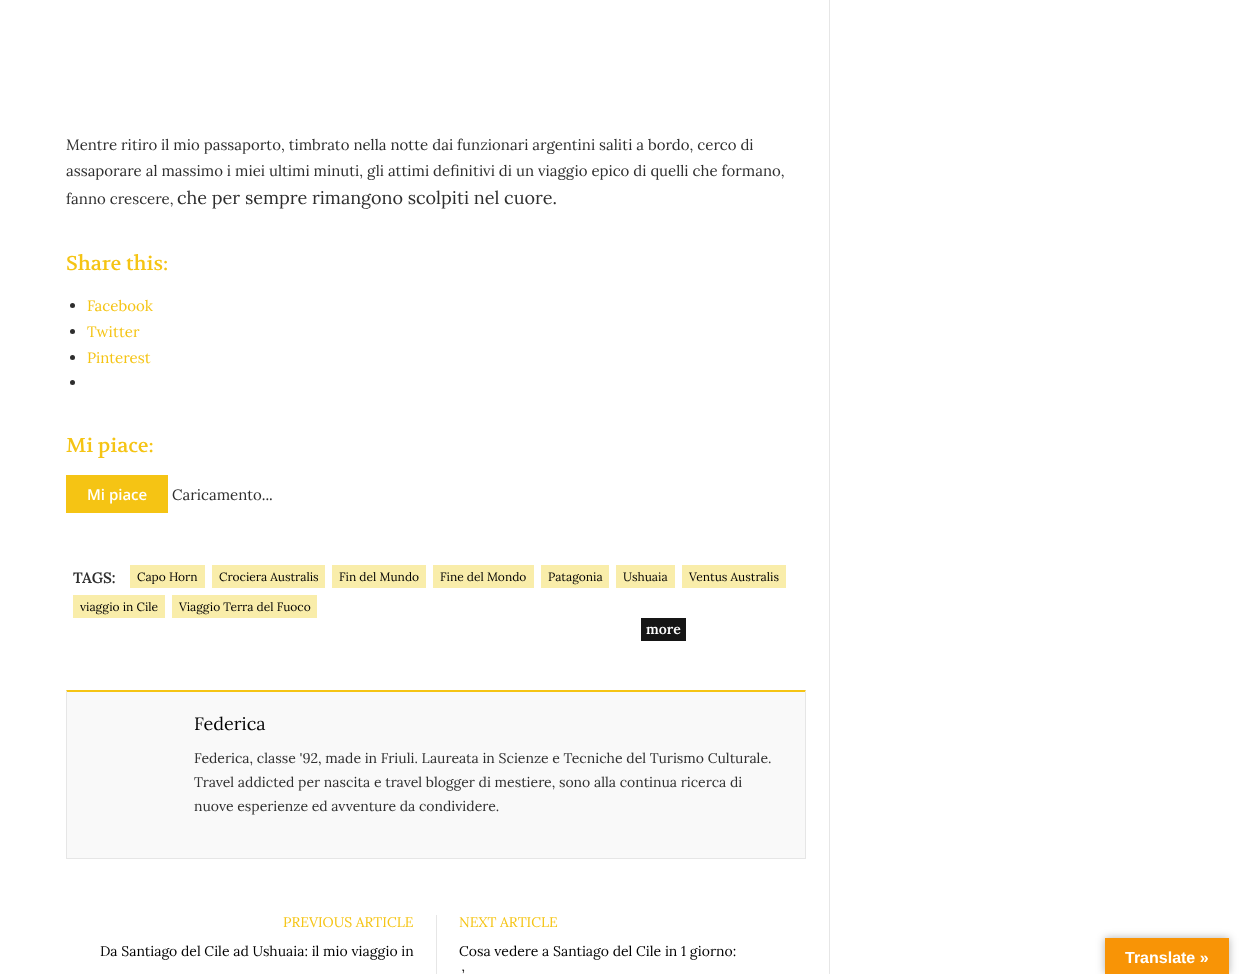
<svg xmlns="http://www.w3.org/2000/svg" width="1249" height="974" viewBox="0 0 1249 974">
  <rect width="100%" height="100%" fill="#fff"/>
  <circle cx="72.5" cy="305.5" r="2.5" fill="#2e2e2e"/>
  <circle cx="72.5" cy="331.5" r="2.5" fill="#2e2e2e"/>
  <circle cx="72.5" cy="357.5" r="2.5" fill="#2e2e2e"/>
  <circle cx="72.5" cy="382.5" r="2.5" fill="#2e2e2e"/>
  <path d="M66 475h102v38H66z" fill="#f5c414"/>
  <path d="M130 565h75v23H130z" fill="#f9edaa"/>
  <path d="M212 565h113v23H212z" fill="#f9edaa"/>
  <path d="M332 565h94v23H332z" fill="#f9edaa"/>
  <path d="M433 565h101v23H433z" fill="#f9edaa"/>
  <path d="M541 565h68v23H541z" fill="#f9edaa"/>
  <path d="M616 565h59v23H616z" fill="#f9edaa"/>
  <path d="M682 565h104v23H682z" fill="#f9edaa"/>
  <path d="M73 595h92v23H73z" fill="#f9edaa"/>
  <path d="M172 595h145v23H172z" fill="#f9edaa"/>
  <path d="M641 618h45v23H641z" fill="#161616"/>
  <path d="M67 692h738v166H67z" fill="#f9f9f9"/>
  <path d="M66 690H806L805 692H67Z" fill="#f5c414"/>
  <path d="M806 690V859L805 858V692Z" fill="#e6e6e6"/>
  <path d="M66 858h740v1H66z" fill="#e6e6e6"/>
  <path d="M66 859V690L67 692V858Z" fill="#e6e6e6"/>
  <path d="M436 915h1v59H436z" fill="#e6e6e6"/>
  <path d="M829 0h1v974H829z" fill="#e6e6e6"/>
  <path d="M1105 938h124v36H1105z" fill="#0000004d" filter="blur(4.5px)"/>
  <path d="M1105 938h124v36H1105z" fill="#f89406"/>
  <g font-family="Lora" font-size="15" fill="#2e2e2e">
    <text x="66" y="150">Mentre ritiro il mio passaporto, timbrato nella notte dai funzionari argentini saliti a bordo, cerco di</text>
    <text x="66" y="176">assaporare al massimo i miei ultimi minuti, gli attimi definitivi di un viaggio epico di quelli che formano,</text>
    <text x="66" y="204">fanno crescere,</text>
  </g>
  <text x="177" y="204" font-family="Lora" font-size="18" fill="#2e2e2e">che per sempre rimangono scolpiti nel cuore.</text>
  <text x="66" y="270" font-family="Volkhov" font-size="20" fill="#f5c414">Share this:</text>
  <g font-family="Lora" font-size="15" fill="#f5c414">
    <text x="87" y="311">Facebook</text>
    <text x="87" y="337">Twitter</text>
    <text x="87" y="363">Pinterest</text>
  </g>
  <text x="66" y="452" font-family="Volkhov" font-size="20" fill="#f5c414">Mi piace:</text>
  <text x="87" y="500" font-family="Open Sans" font-size="15" font-weight="600" fill="#fff">Mi piace</text>
  <text x="172" y="500" font-family="Lora" font-size="15" fill="#2e2e2e">Caricamento...</text>
  <text x="73" y="583" font-family="Lora" font-size="15" font-weight="600" fill="#2e2e2e">TAGS:</text>
  <g font-family="Lora" font-size="12" fill="#010101">
    <text x="137" y="581">Capo Horn</text>
    <text x="219" y="581">Crociera Australis</text>
    <text x="339" y="581">Fin del Mundo</text>
    <text x="440" y="581">Fine del Mondo</text>
    <text x="548" y="581">Patagonia</text>
    <text x="623" y="581">Ushuaia</text>
    <text x="689" y="581">Ventus Australis</text>
    <text x="80" y="611">viaggio in Cile</text>
    <text x="179" y="611">Viaggio Terra del Fuoco</text>
  </g>
  <text x="646" y="634" font-family="Lora" font-size="14" font-weight="600" fill="#fff">more</text>
  <text x="194" y="730" font-family="Lora" font-size="18" fill="#010101">Federica</text>
  <g font-family="Lora" font-size="14" fill="#2e2e2e">
    <text x="194" y="763">Federica, classe '92, made in Friuli. Laureata in Scienze e Tecniche del Turismo Culturale.</text>
    <text x="194" y="787">Travel addicted per nascita e travel blogger di mestiere, sono alla continua ricerca di</text>
    <text x="194" y="811">nuove esperienze ed avventure da condividere.</text>
  </g>
  <text x="283" y="927" font-family="Lora" font-size="14" fill="#f5c414">PREVIOUS ARTICLE</text>
  <text x="100" y="956" font-family="Lora" font-size="14" fill="#010101">Da Santiago del Cile ad Ushuaia: il mio viaggio in</text>
  <text x="459" y="927" font-family="Lora" font-size="14" fill="#f5c414">NEXT ARTICLE</text>
  <g font-family="Lora" font-size="14" fill="#010101">
    <text x="459" y="956">Cosa vedere a Santiago del Cile in 1 giorno:</text>
    <text x="462" y="980">’</text>
  </g>
  <text x="1125" y="963" font-family="Liberation Sans" font-size="16" font-weight="bold" fill="#fff">Translate »</text>
</svg>
